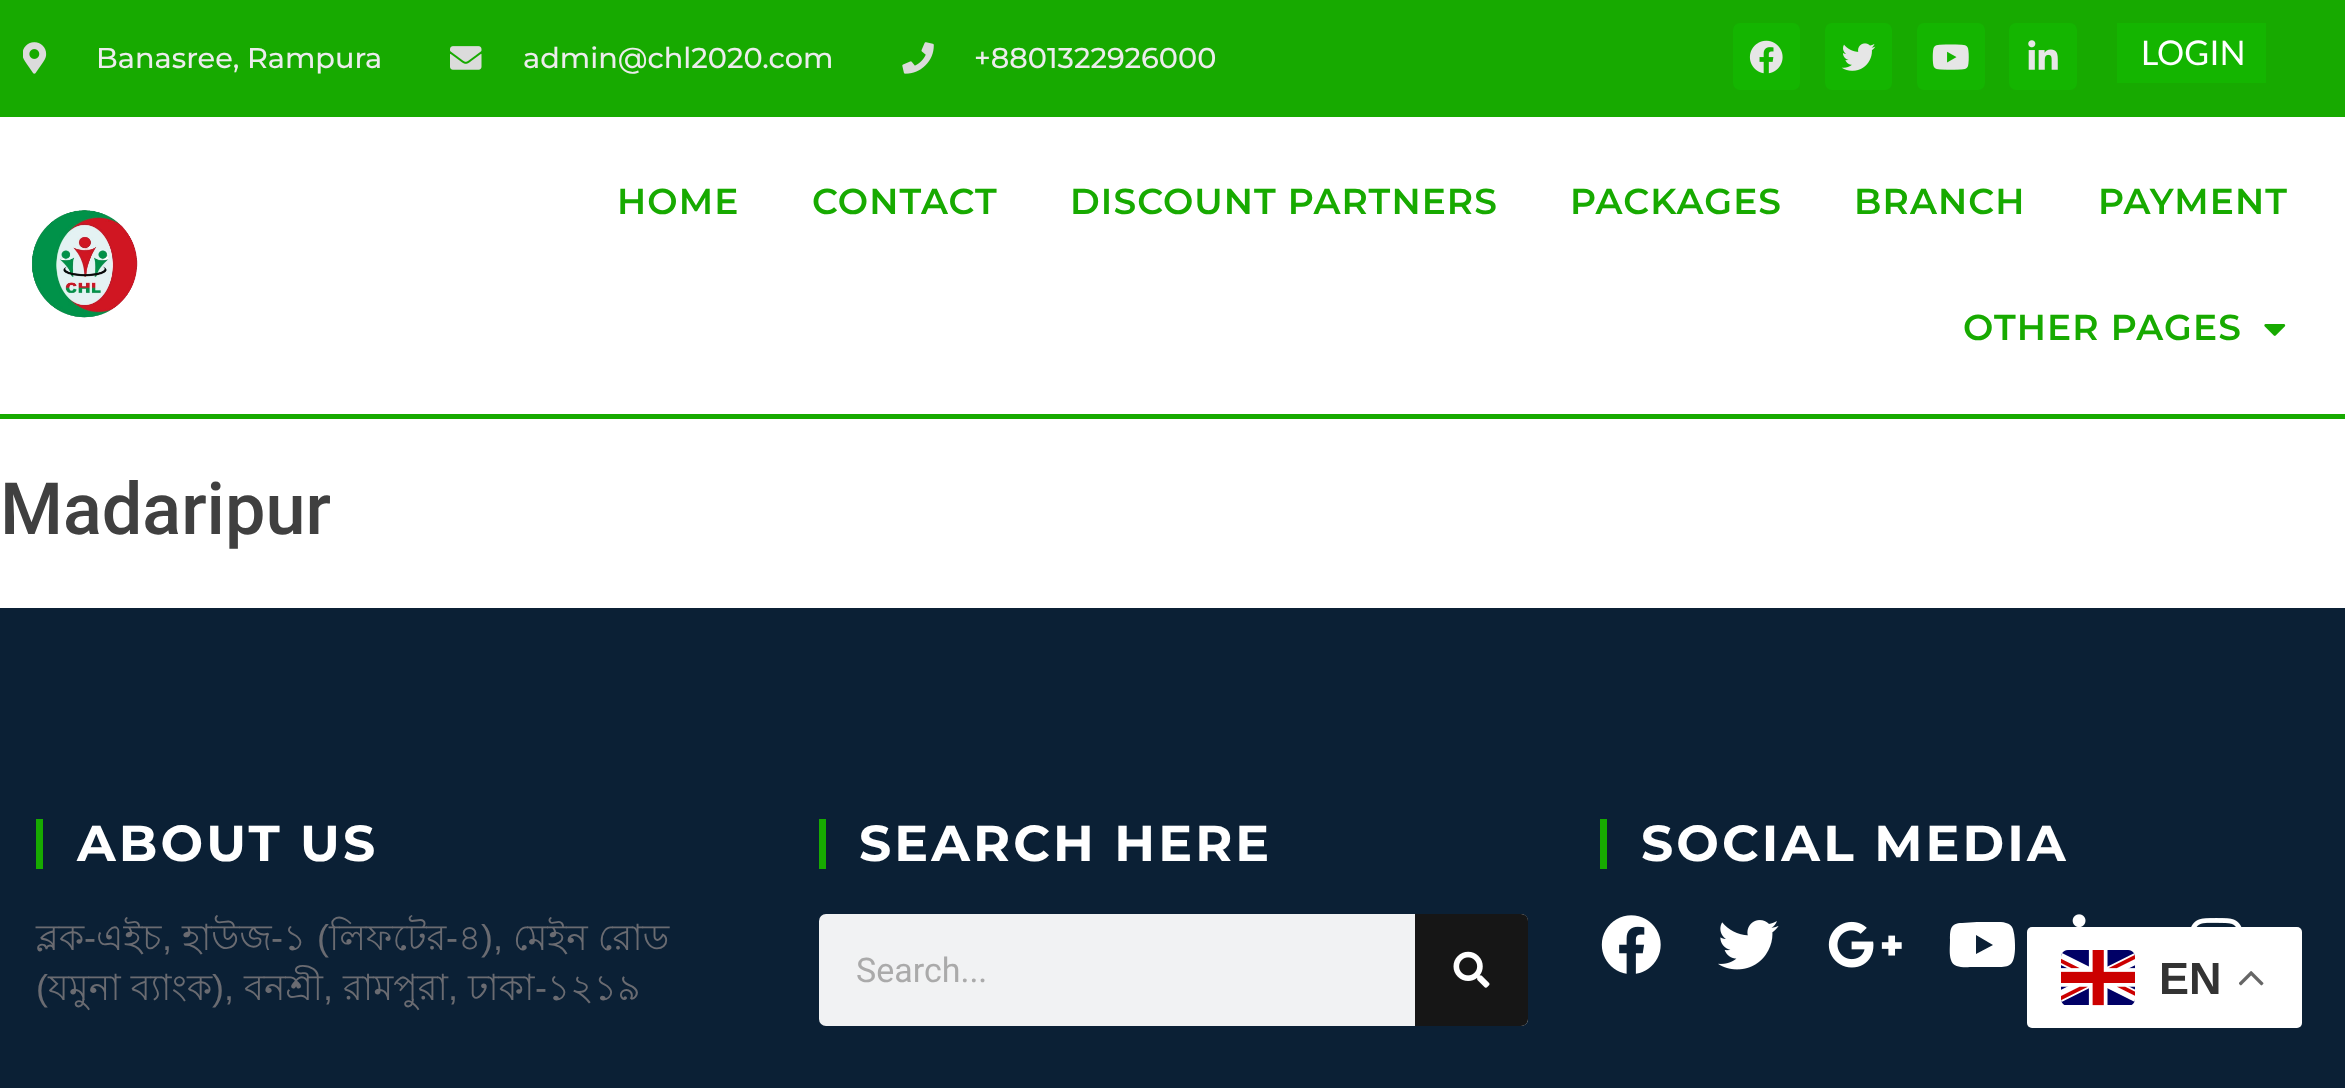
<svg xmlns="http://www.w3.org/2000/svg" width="2345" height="1088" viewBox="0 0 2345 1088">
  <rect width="100%" height="100%" fill="#fff"/>
  <path d="M0 0h2345v117H0z" fill="#17aa00"/>
  <image x="23" y="42" width="24" height="32" href="img/1.png"/>
  <image x="450" y="46" width="32" height="24" href="img/2.png"/>
  <image x="902" y="42" width="32" height="32" href="img/3.png"/>
  <rect x="1733" y="23" width="67" height="67" rx="7" fill="#14b500"/>
  <image x="1749" y="40" width="34" height="34" href="img/4.png"/>
  <rect x="1825" y="23" width="67" height="67" rx="7" fill="#14b500"/>
  <image x="1841" y="43" width="35" height="28" href="img/5.png"/>
  <rect x="1917" y="23" width="68" height="67" rx="7" fill="#14b500"/>
  <image x="1932" y="44" width="37" height="26" href="img/6.png"/>
  <rect x="2009" y="23" width="68" height="67" rx="7" fill="#14b500"/>
  <image x="2028" y="40" width="30" height="30" href="img/7.png"/>
  <path d="M2117 23h149v60H2117z" fill="#14b500"/>
  <path d="M0 414h2345v5H0z" fill="#17aa00"/>
  <image x="32" y="210" width="106" height="108" href="img/8.png"/>
  <image x="2264" y="324" width="22" height="12" href="img/9.png"/>
  <path d="M0 608h2345v480H0z" fill="#0b2035"/>
  <path d="M36 819h7v50H36z" fill="#17aa00"/>
  <path d="M819 819h7v50H819z" fill="#17aa00"/>
  <rect x="819" y="914" width="709" height="112" rx="7" fill="#f1f2f3"/>
  <path d="M1415 914H1521C1525 914 1528 917 1528 921V1019C1528 1023 1525 1026 1521 1026H1415Z" fill="#161616"/>
  <image x="1453" y="951" width="37" height="37" href="img/10.png"/>
  <path d="M1600 819h7v50H1600z" fill="#17aa00"/>
  <image x="1601" y="915" width="60" height="59" href="img/11.png"/>
  <image x="1718" y="920" width="61" height="50" href="img/12.png"/>
  <image x="1828" y="921" width="74" height="47" href="img/13.png"/>
  <path d="M2013 929C2015 936 2015 943 2015 949C2014 969 2008 967 1989 967H1973C1967 967 1953 969 1951 960C1949 954 1950 947 1950 940C1950 930 1950 923 1962 923L1977 922H1996C2002 922 2011 922 2013 929ZM1976 954L1993 945L1976 935Z" fill="#fff"/>
  <image x="2072" y="914" width="14" height="13" href="img/14.png"/>
  <image x="2191" y="918" width="51" height="9" href="img/15.png"/>
  <rect x="2027" y="927" width="275" height="101" rx="5" fill="#fff"/>
  <image x="2061" y="950" width="74" height="56" href="img/16.png"/>
  <image x="2239" y="971" width="25" height="15" href="img/17.png"/>
  <g font-family="Montserrat" font-size="28.75" font-weight="500" fill="#ececec">
    <text x="96" y="68">Banasree, Rampura</text>
    <text x="523" y="68">admin@chl2020.com</text>
    <text x="974" y="68">+8801322926000</text>
  </g>
  <text x="2141" y="65" font-family="Lato" font-size="34" fill="#fff">LOGIN</text>
  <g font-family="Montserrat" font-size="36" font-weight="600" letter-spacing="1.1" fill="#17aa00">
    <text x="617" y="214">HOME</text>
    <text x="812" y="214">CONTACT</text>
    <text x="1070" y="214">DISCOUNT PARTNERS</text>
    <text x="1570" y="214">PACKAGES</text>
    <text x="1854" y="214">BRANCH</text>
    <text x="2098" y="214">PAYMENT</text>
    <text x="1963" y="340">OTHER PAGES</text>
  </g>
  <text x="0" y="534" font-family="Roboto" font-size="72" font-weight="500" fill="#404040">Madaripur</text>
  <text x="77" y="861" font-family="Montserrat" font-size="50.5" font-weight="bold" letter-spacing="3.1" fill="#fff">ABOUT US</text>
  <text x="36" y="950" font-family="Lohit Bengali" font-size="36" fill="#6a6b71">ব্লক</text>
  <text x="84" y="950" font-family="Liberation Sans" font-size="36" fill="#6a6b71">-</text>
  <g font-family="Lohit Bengali" font-size="36" fill="#6a6b71">
    <text x="96" y="950">এইচ</text>
    <text x="182" y="950">হাউজ</text>
  </g>
  <text x="271" y="950" font-family="Liberation Sans" font-size="36" fill="#6a6b71">-</text>
  <text x="283" y="950" font-family="Lohit Bengali" font-size="36" fill="#6a6b71">১</text>
  <text x="317" y="950" font-family="Liberation Sans" font-size="36" fill="#6a6b71">(</text>
  <text x="329" y="950" font-family="Lohit Bengali" font-size="36" fill="#6a6b71">লিফটের</text>
  <text x="446" y="950" font-family="Liberation Sans" font-size="36" fill="#6a6b71">-</text>
  <text x="458" y="950" font-family="Lohit Bengali" font-size="36" fill="#6a6b71">৪</text>
  <text x="481" y="950" font-family="Liberation Sans" font-size="36" fill="#6a6b71">),</text>
  <text x="513" y="950" font-family="Lohit Bengali" font-size="36" fill="#6a6b71">মেইন রোড</text>
  <g font-family="Liberation Sans" font-size="36" fill="#6a6b71">
    <text x="162" y="950">,</text>
    <text x="36" y="1000">(</text>
  </g>
  <text x="48" y="1000" font-family="Lohit Bengali" font-size="36" fill="#6a6b71">যমুনা ব্যাংক</text>
  <text x="212" y="1000" font-family="Liberation Sans" font-size="36" fill="#6a6b71">),</text>
  <g font-family="Lohit Bengali" font-size="36" fill="#6a6b71">
    <text x="244" y="1000">বনশ্রী</text>
    <text x="343" y="1000">রামপুরা</text>
    <text x="468" y="1000">ঢাকা</text>
  </g>
  <text x="535" y="1000" font-family="Liberation Sans" font-size="36" fill="#6a6b71">-</text>
  <text x="547" y="1000" font-family="Lohit Bengali" font-size="36" fill="#6a6b71">১২১৯</text>
  <g font-family="Liberation Sans" font-size="36" fill="#6a6b71">
    <text x="323" y="1000">,</text>
    <text x="448" y="1000">,</text>
  </g>
  <text x="859" y="861" font-family="Montserrat" font-size="50.5" font-weight="bold" letter-spacing="3.1" fill="#fff">SEARCH HERE</text>
  <text x="856" y="982" font-family="Roboto" font-size="34" fill="#aaa">Search...</text>
  <text x="1641" y="861" font-family="Montserrat" font-size="50.5" font-weight="bold" letter-spacing="3.1" fill="#fff">SOCIAL MEDIA</text>
  <text x="2159" y="994" font-family="Liberation Sans" font-size="45" font-weight="bold" fill="#333">EN</text>
</svg>
